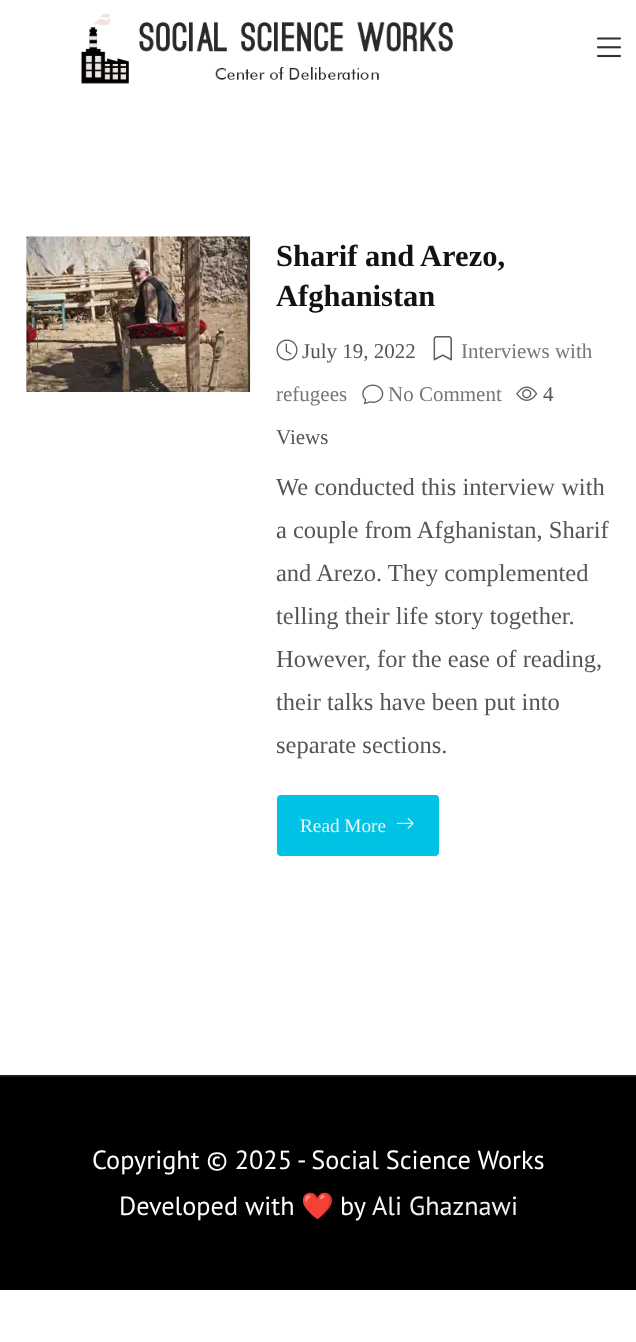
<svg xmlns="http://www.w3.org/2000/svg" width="636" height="1342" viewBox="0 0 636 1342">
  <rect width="100%" height="100%" fill="#fff"/>
  <image x="81" y="13" width="372" height="71" href="img/1.png"/>
  <image x="597" y="37" width="24" height="21" href="img/2.png"/>
  <image x="26" y="236" width="225" height="156" href="img/3.png"/>
  <image x="276" y="339" width="22" height="22" href="img/4.png"/>
  <image x="433" y="336" width="19" height="25" href="img/5.png"/>
  <image x="516" y="386" width="22" height="15" href="img/6.png"/>
  <image x="362" y="384" width="22" height="21" href="img/7.png"/>
  <rect x="277" y="795" width="162" height="61" rx="4" fill="#00c2e5"/>
  <image x="396" y="818" width="18" height="11" href="img/8.png"/>
  <path d="M0 1077h636v213H0z" fill="#000"/>
  <path d="M0 1075h636v2H0z" fill="#1a1a1a"/>
  <g font-family="Liberation Serif" font-size="30.5" font-weight="bold" fill="#121212">
    <text x="276" y="266">Sharif and Arezo,</text>
    <text x="276" y="306">Afghanistan</text>
  </g>
  <text x="302" y="358" font-family="Liberation Serif" font-size="21" fill="#555">July 19, 2022</text>
  <g font-family="Liberation Serif" font-size="21" fill="#777">
    <text x="461" y="358">Interviews with</text>
    <text x="276" y="401">refugees</text>
  </g>
  <g font-family="Liberation Serif" font-size="21" fill="#555">
    <text x="543" y="401">4</text>
    <text x="276" y="444">Views</text>
  </g>
  <text x="388" y="401" font-family="Liberation Serif" font-size="21" fill="#777">No Comment</text>
  <g font-family="Liberation Serif" font-size="24.5" fill="#555">
    <text x="276" y="495">We conducted this interview with</text>
    <text x="276" y="538">a couple from Afghanistan, Sharif</text>
    <text x="276" y="581">and Arezo. They complemented</text>
    <text x="276" y="624">telling their life story together.</text>
    <text x="276" y="667">However, for the ease of reading,</text>
    <text x="276" y="710">their talks have been put into</text>
    <text x="276" y="753">separate sections.</text>
  </g>
  <text x="300" y="832" font-family="Liberation Serif" font-size="19.25" fill="#f2f2f2">Read More</text>
  <g font-family="PT Sans" font-size="26.25" fill="#fff">
    <text x="92" y="1169">Copyright © 2025 - Social Science Works</text>
    <text x="119" y="1215">Developed with</text>
  </g>
  <text x="301" y="1215" font-family="Noto Color Emoji" font-size="26.25" fill="#fff">❤️</text>
  <text x="340" y="1215" font-family="PT Sans" font-size="26.25" fill="#fff">by</text>
  <text x="372" y="1215" font-family="PT Sans" font-size="26.25" fill="#f2f2f2">Ali Ghaznawi</text>
</svg>
